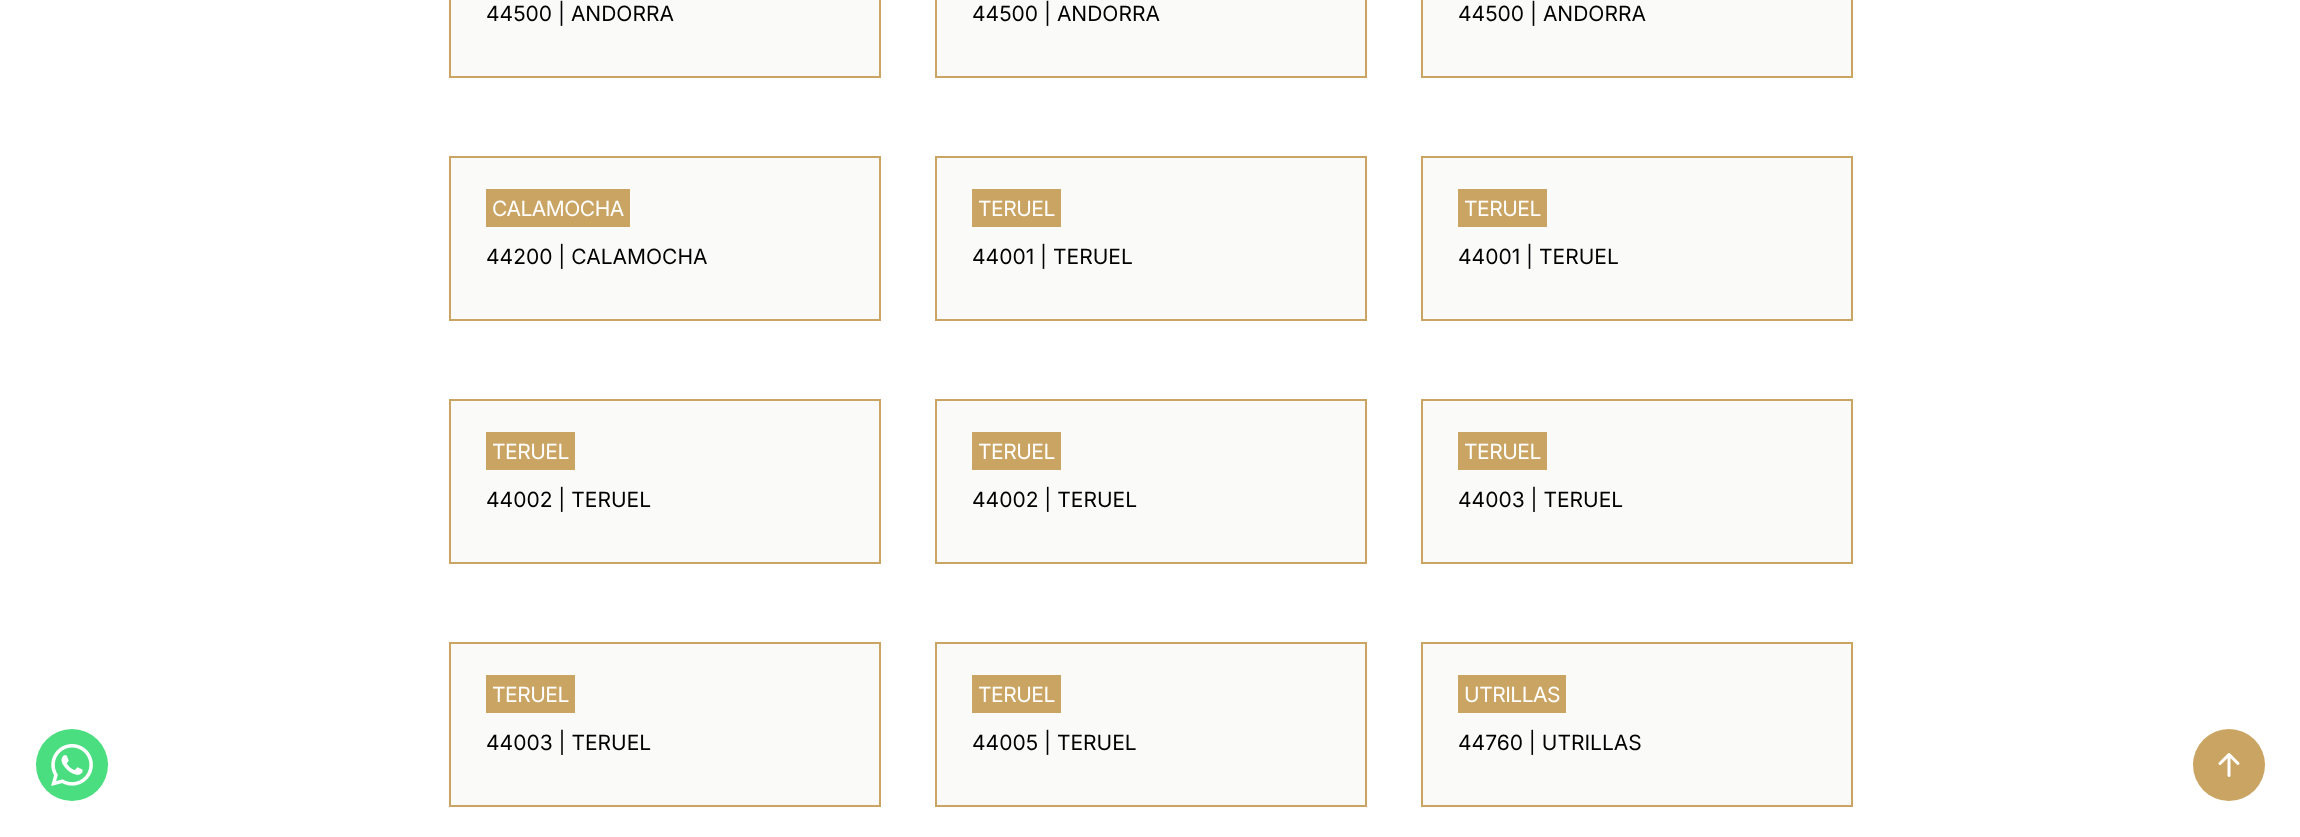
<svg xmlns="http://www.w3.org/2000/svg" width="2300" height="837" viewBox="0 0 2300 837">
  <rect width="100%" height="100%" fill="#fff"/>
  <path d="M450 -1h430v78H450z" fill="#fafaf9" stroke="#caa462" stroke-width="2"/>
  <path d="M936 -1h430v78H936z" fill="#fafaf9" stroke="#caa462" stroke-width="2"/>
  <path d="M1422 -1h430v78H1422z" fill="#fafaf9" stroke="#caa462" stroke-width="2"/>
  <path d="M450 157h430v163H450z" fill="#fafaf9" stroke="#caa462" stroke-width="2"/>
  <path d="M486 189h144v38H486z" fill="#caa462"/>
  <path d="M936 157h430v163H936z" fill="#fafaf9" stroke="#caa462" stroke-width="2"/>
  <path d="M972 189h89v38H972z" fill="#caa462"/>
  <path d="M1422 157h430v163H1422z" fill="#fafaf9" stroke="#caa462" stroke-width="2"/>
  <path d="M1458 189h89v38H1458z" fill="#caa462"/>
  <path d="M450 400h430v163H450z" fill="#fafaf9" stroke="#caa462" stroke-width="2"/>
  <path d="M486 432h89v38H486z" fill="#caa462"/>
  <path d="M936 400h430v163H936z" fill="#fafaf9" stroke="#caa462" stroke-width="2"/>
  <path d="M972 432h89v38H972z" fill="#caa462"/>
  <path d="M1422 400h430v163H1422z" fill="#fafaf9" stroke="#caa462" stroke-width="2"/>
  <path d="M1458 432h89v38H1458z" fill="#caa462"/>
  <path d="M450 643h430v163H450z" fill="#fafaf9" stroke="#caa462" stroke-width="2"/>
  <path d="M486 675h89v38H486z" fill="#caa462"/>
  <path d="M936 643h430v163H936z" fill="#fafaf9" stroke="#caa462" stroke-width="2"/>
  <path d="M972 675h89v38H972z" fill="#caa462"/>
  <path d="M1422 643h430v163H1422z" fill="#fafaf9" stroke="#caa462" stroke-width="2"/>
  <path d="M1458 675h108v38H1458z" fill="#caa462"/>
  <circle cx="72" cy="765" r="36" fill="#4ade80"/>
  <image x="51" y="744" width="42" height="42" href="img/1.png"/>
  <circle cx="2229" cy="765" r="36" fill="#caa462"/>
  <image x="2218" y="753" width="22" height="24" href="img/2.png"/>
  <g font-family="Inter" font-size="21" fill="#000">
    <text x="486" y="21">44500 | ANDORRA</text>
    <text x="972" y="21">44500 | ANDORRA</text>
    <text x="1458" y="21">44500 | ANDORRA</text>
  </g>
  <text x="492" y="216" font-family="Inter" font-size="21" letter-spacing="-0.5" fill="#fff">CALAMOCHA</text>
  <text x="486" y="264" font-family="Inter" font-size="21" fill="#000">44200 | CALAMOCHA</text>
  <text x="978" y="216" font-family="Inter" font-size="21" letter-spacing="-0.5" fill="#fff">TERUEL</text>
  <text x="972" y="264" font-family="Inter" font-size="21" fill="#000">44001 | TERUEL</text>
  <text x="1464" y="216" font-family="Inter" font-size="21" letter-spacing="-0.5" fill="#fff">TERUEL</text>
  <text x="1458" y="264" font-family="Inter" font-size="21" fill="#000">44001 | TERUEL</text>
  <text x="492" y="459" font-family="Inter" font-size="21" letter-spacing="-0.5" fill="#fff">TERUEL</text>
  <text x="486" y="507" font-family="Inter" font-size="21" fill="#000">44002 | TERUEL</text>
  <text x="978" y="459" font-family="Inter" font-size="21" letter-spacing="-0.5" fill="#fff">TERUEL</text>
  <text x="972" y="507" font-family="Inter" font-size="21" fill="#000">44002 | TERUEL</text>
  <text x="1464" y="459" font-family="Inter" font-size="21" letter-spacing="-0.5" fill="#fff">TERUEL</text>
  <text x="1458" y="507" font-family="Inter" font-size="21" fill="#000">44003 | TERUEL</text>
  <text x="492" y="702" font-family="Inter" font-size="21" letter-spacing="-0.5" fill="#fff">TERUEL</text>
  <text x="486" y="750" font-family="Inter" font-size="21" fill="#000">44003 | TERUEL</text>
  <text x="978" y="702" font-family="Inter" font-size="21" letter-spacing="-0.5" fill="#fff">TERUEL</text>
  <text x="972" y="750" font-family="Inter" font-size="21" fill="#000">44005 | TERUEL</text>
  <text x="1464" y="702" font-family="Inter" font-size="21" letter-spacing="-0.5" fill="#fff">UTRILLAS</text>
  <text x="1458" y="750" font-family="Inter" font-size="21" fill="#000">44760 | UTRILLAS</text>
</svg>
